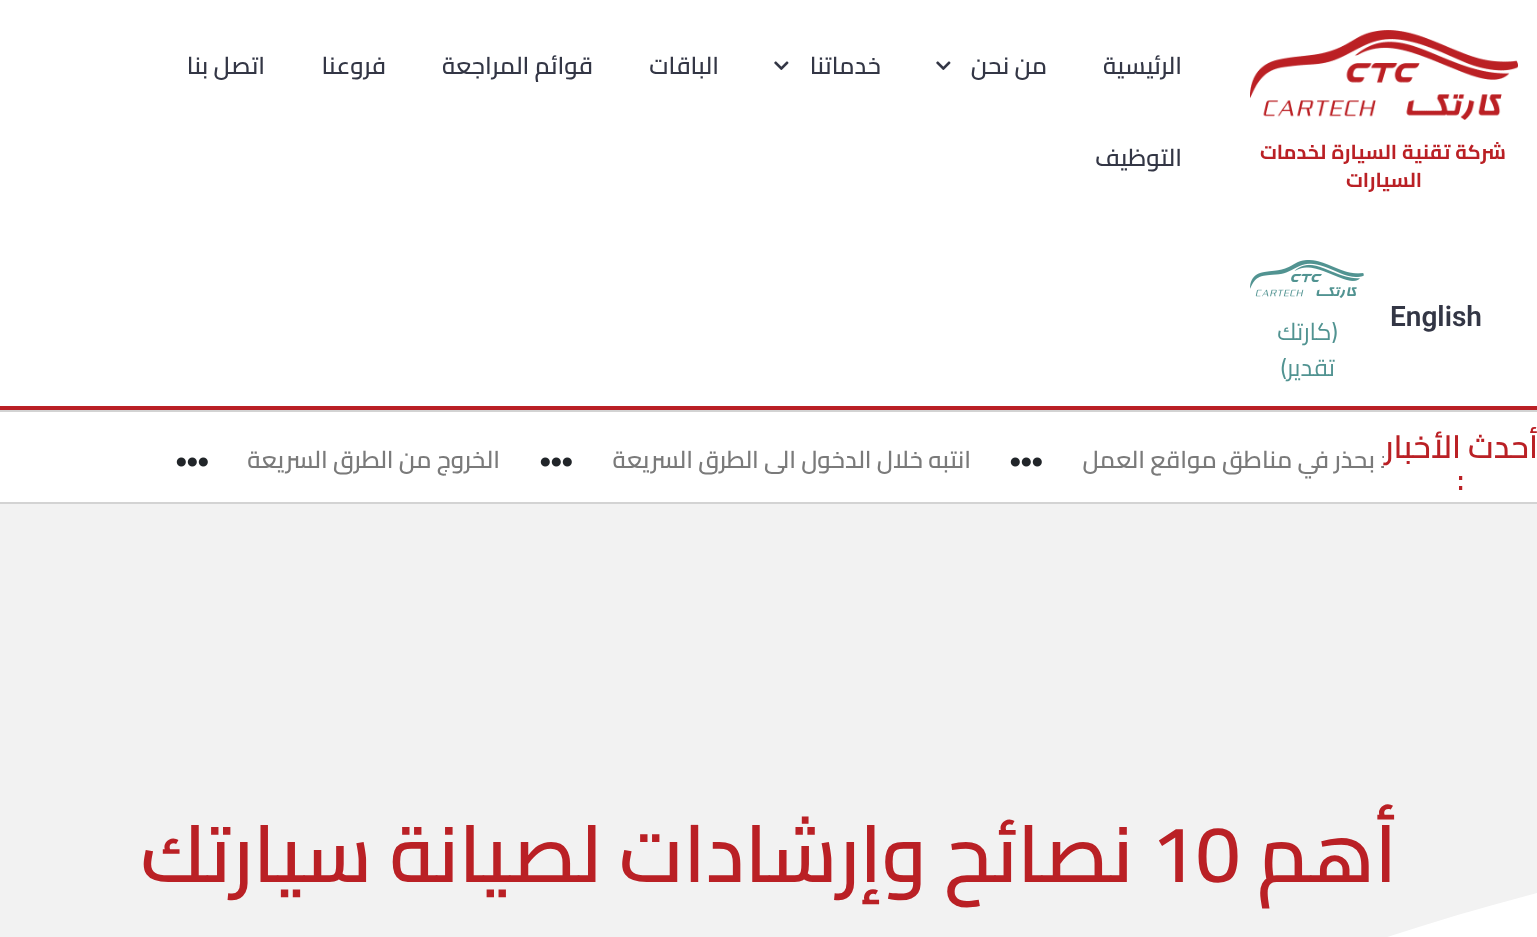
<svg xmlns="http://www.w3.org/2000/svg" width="1537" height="937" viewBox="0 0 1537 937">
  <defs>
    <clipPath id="clip1"><path d="M0 422h1384v80H0z"/></clipPath>
  </defs>
  <rect width="100%" height="100%" fill="#fff"/>
  <path d="M0 406h1537v4H0z" fill="#ba2025"/>
  <image x="1250" y="30" width="268" height="90" href="img/1.png"/>
  <image x="936" y="61" width="15" height="9" href="img/2.png"/>
  <image x="774" y="61" width="15" height="9" href="img/2.png"/>
  <image x="1250" y="260" width="114" height="38" href="img/3.png"/>
  <path d="M0 410h1537v2H0z" fill="#d3d3d3"/>
  <path d="M0 502h1537v2H0z" fill="#d3d3d3"/>
  <image x="1010" y="457" width="32" height="10" href="img/4.png"/>
  <image x="540" y="457" width="32" height="10" href="img/4.png"/>
  <image x="176" y="457" width="32" height="10" href="img/4.png"/>
  <path d="M0 504h1537v433H0z" fill="#f2f2f2"/>
  <path d="M458 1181C548 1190 664 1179 760 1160C854 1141 1043 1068 1162 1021C1465 895 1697 847 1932 827C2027 819 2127 813 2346 837C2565 860 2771 937 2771 937V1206H-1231V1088C-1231 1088-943 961-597 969C-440 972-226 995-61 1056C24 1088 148 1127 258 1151C367 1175 416 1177 458 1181Z" fill="#fff"/>
  <g font-family="Cairo" font-size="20" font-weight="bold" direction="rtl" fill="#ba2025">
    <text x="1506" y="159">شركة تقنية السيارة لخدمات</text>
    <text x="1422" y="187">السيارات</text>
  </g>
  <g font-family="Cairo" font-size="24" font-weight="600" direction="rtl" fill="#333645">
    <text x="1182" y="74">الرئيسية</text>
    <text x="1047" y="74">من نحن</text>
    <text x="881" y="74">خدماتنا</text>
    <text x="719" y="74">الباقات</text>
    <text x="593" y="74">قوائم المراجعة</text>
    <text x="386" y="74">فروعنا</text>
    <text x="265" y="74">اتصل بنا</text>
    <text x="1182" y="166">التوظيف</text>
  </g>
  <text x="1390" y="326" font-family="Roboto" font-size="28" font-weight="600" fill="#333645">English</text>
  <g font-family="Cairo" font-size="24" direction="rtl" fill="#519391">
    <text x="1338" y="340">(كارتك</text>
    <text x="1335" y="376">تقدير)</text>
  </g>
  <text x="1538" y="458" font-family="Cairo" font-size="32" font-weight="600" direction="rtl" fill="#ba2025">أحدث الأخبار</text>
  <text x="1457" y="490" font-family="Cairo" font-size="32" font-weight="600" fill="#ba2025">:</text>
  <g clip-path="url(#clip1)">
    <text x="1408" y="468" font-family="Cairo" font-size="24" font-weight="600" direction="rtl" fill="#7a7a7a">قد بحذر في مناطق مواقع العمل</text>
  </g>
  <g font-family="Cairo" font-size="24" font-weight="600" direction="rtl" fill="#7a7a7a">
    <text x="971" y="468">انتبه خلال الدخول الى الطرق السريعة</text>
    <text x="500" y="468">الخروج من الطرق السريعة</text>
  </g>
  <text x="1397" y="882" font-family="Cairo" font-size="80" font-weight="600" direction="rtl" fill="#ba2025">أهم</text>
  <text x="1151" y="882" font-family="Cairo" font-size="80" font-weight="600" fill="#ba2025">10</text>
  <text x="1133" y="882" font-family="Cairo" font-size="80" font-weight="600" direction="rtl" fill="#ba2025">نصائح وإرشادات لصيانة سيارتك</text>
</svg>
